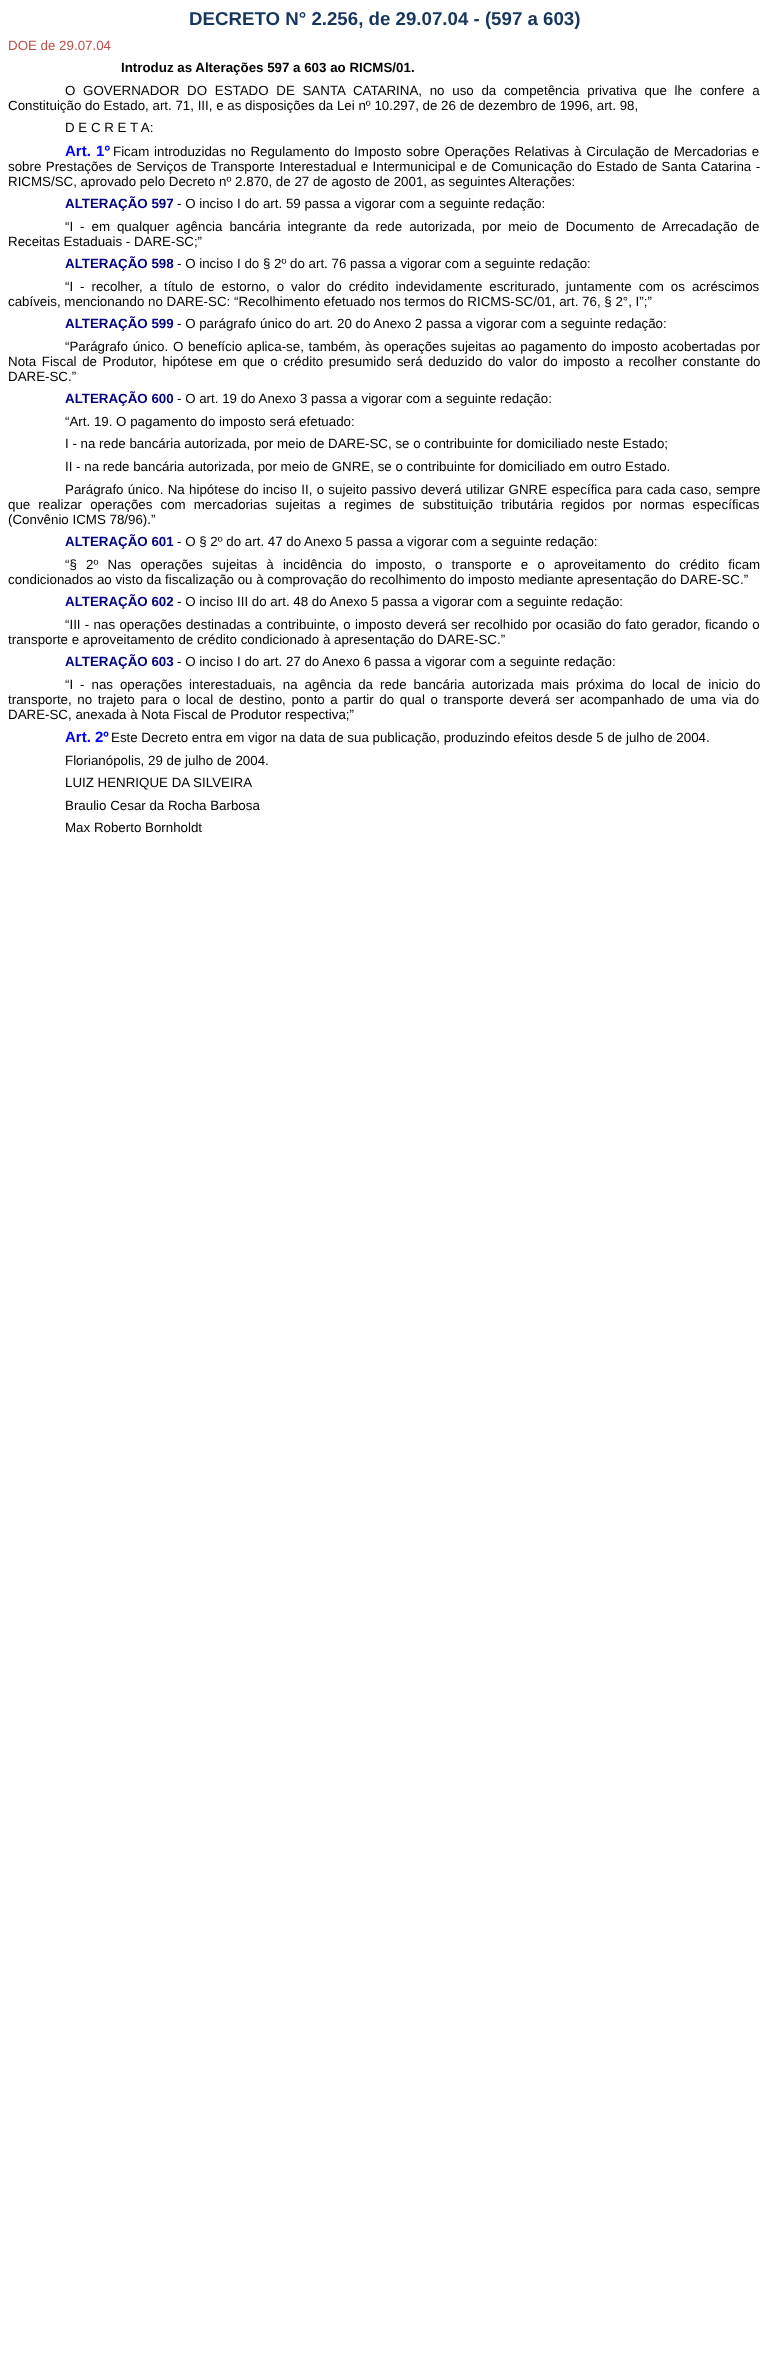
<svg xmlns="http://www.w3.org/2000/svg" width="768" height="2364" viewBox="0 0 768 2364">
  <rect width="100%" height="100%" fill="#fff"/>
  <text x="189" y="25" font-family="Liberation Sans" font-size="18.7" font-weight="bold" fill="#17365d">DECRETO N° 2.256, de 29.07.04 - (597 a 603)</text>
  <text x="8" y="50" font-family="Liberation Sans" font-size="13.33" fill="#c0504d">DOE de 29.07.04</text>
  <text x="121" y="72" font-family="Liberation Sans" font-size="13.33" font-weight="bold" fill="#000">Introduz as Alterações 597 a 603 ao RICMS/01.</text>
  <g font-family="Liberation Sans" font-size="13.33" fill="#000">
    <text x="65" y="95" word-spacing="4">O GOVERNADOR DO ESTADO DE SANTA CATARINA, no uso da competência privativa que lhe confere a</text>
    <text x="8" y="110">Constituição do Estado, art. 71, III, e as disposições da Lei nº 10.297, de 26 de dezembro de 1996, art. 98,</text>
    <text x="65" y="132">D E C R E T A:</text>
  </g>
  <text x="65" y="156" word-spacing="1.1" font-family="Liberation Sans" font-size="15" font-weight="bold" fill="#00f">Art. 1º</text>
  <g font-family="Liberation Sans" font-size="13.33" fill="#000">
    <text x="113" y="156" word-spacing="1.1">Ficam introduzidas no Regulamento do Imposto sobre Operações Relativas à Circulação de Mercadorias e</text>
    <text x="8" y="171" word-spacing="0.75">sobre Prestações de Serviços de Transporte Interestadual e Intermunicipal e de Comunicação do Estado de Santa Catarina -</text>
    <text x="8" y="186">RICMS/SC, aprovado pelo Decreto nº 2.870, de 27 de agosto de 2001, as seguintes Alterações:</text>
  </g>
  <text x="65" y="208" font-family="Liberation Sans" font-size="13.33" font-weight="bold" fill="#000080">ALTERAÇÃO 597</text>
  <g font-family="Liberation Sans" font-size="13.33" fill="#000">
    <text x="177" y="208">- O inciso I do art. 59 passa a vigorar com a seguinte redação:</text>
    <text x="65" y="231" word-spacing="3.25">“I - em qualquer agência bancária integrante da rede autorizada, por meio de Documento de Arrecadação de</text>
    <text x="8" y="246">Receitas Estaduais - DARE-SC;”</text>
  </g>
  <text x="65" y="268" font-family="Liberation Sans" font-size="13.33" font-weight="bold" fill="#000080">ALTERAÇÃO 598</text>
  <g font-family="Liberation Sans" font-size="13.33" fill="#000">
    <text x="177" y="268">- O inciso I do § 2º do art. 76 passa a vigorar com a seguinte redação:</text>
    <text x="65" y="291" word-spacing="3.25">“I - recolher, a título de estorno, o valor do crédito indevidamente escriturado, juntamente com os acréscimos</text>
    <text x="8" y="306">cabíveis, mencionando no DARE-SC: “Recolhimento efetuado nos termos do RICMS-SC/01, art. 76, § 2°, I”;”</text>
  </g>
  <text x="65" y="328" font-family="Liberation Sans" font-size="13.33" font-weight="bold" fill="#000080">ALTERAÇÃO 599</text>
  <g font-family="Liberation Sans" font-size="13.33" fill="#000">
    <text x="177" y="328">- O parágrafo único do art. 20 do Anexo 2 passa a vigorar com a seguinte redação:</text>
    <text x="65" y="351" word-spacing="1">“Parágrafo único. O benefício aplica-se, também, às operações sujeitas ao pagamento do imposto acobertadas por</text>
    <text x="8" y="366" word-spacing="1.9">Nota Fiscal de Produtor, hipótese em que o crédito presumido será deduzido do valor do imposto a recolher constante do</text>
    <text x="8" y="381">DARE-SC.”</text>
  </g>
  <text x="65" y="403" font-family="Liberation Sans" font-size="13.33" font-weight="bold" fill="#000080">ALTERAÇÃO 600</text>
  <g font-family="Liberation Sans" font-size="13.33" fill="#000">
    <text x="177" y="403">- O art. 19 do Anexo 3 passa a vigorar com a seguinte redação:</text>
    <text x="65" y="426">“Art. 19. O pagamento do imposto será efetuado:</text>
    <text x="65" y="448">I - na rede bancária autorizada, por meio de DARE-SC, se o contribuinte for domiciliado neste Estado;</text>
    <text x="65" y="471">II - na rede bancária autorizada, por meio de GNRE, se o contribuinte for domiciliado em outro Estado.</text>
    <text x="65" y="494" word-spacing="0.6">Parágrafo único. Na hipótese do inciso II, o sujeito passivo deverá utilizar GNRE específica para cada caso, sempre</text>
    <text x="8" y="509" word-spacing="4.4">que realizar operações com mercadorias sujeitas a regimes de substituição tributária regidos por normas específicas</text>
    <text x="8" y="524">(Convênio ICMS 78/96).”</text>
  </g>
  <text x="65" y="546" font-family="Liberation Sans" font-size="13.33" font-weight="bold" fill="#000080">ALTERAÇÃO 601</text>
  <g font-family="Liberation Sans" font-size="13.33" fill="#000">
    <text x="177" y="546">- O § 2º do art. 47 do Anexo 5 passa a vigorar com a seguinte redação:</text>
    <text x="65" y="569" word-spacing="5.5">“§ 2º Nas operações sujeitas à incidência do imposto, o transporte e o aproveitamento do crédito ficam</text>
    <text x="8" y="584">condicionados ao visto da fiscalização ou à comprovação do recolhimento do imposto mediante apresentação do DARE-SC.”</text>
  </g>
  <text x="65" y="606" font-family="Liberation Sans" font-size="13.33" font-weight="bold" fill="#000080">ALTERAÇÃO 602</text>
  <g font-family="Liberation Sans" font-size="13.33" fill="#000">
    <text x="177" y="606">- O inciso III do art. 48 do Anexo 5 passa a vigorar com a seguinte redação:</text>
    <text x="65" y="629" word-spacing="0.6">“III - nas operações destinadas a contribuinte, o imposto deverá ser recolhido por ocasião do fato gerador, ficando o</text>
    <text x="8" y="644">transporte e aproveitamento de crédito condicionado à apresentação do DARE-SC.”</text>
  </g>
  <text x="65" y="666" font-family="Liberation Sans" font-size="13.33" font-weight="bold" fill="#000080">ALTERAÇÃO 603</text>
  <g font-family="Liberation Sans" font-size="13.33" fill="#000">
    <text x="177" y="666">- O inciso I do art. 27 do Anexo 6 passa a vigorar com a seguinte redação:</text>
    <text x="65" y="689" word-spacing="3.25">“I - nas operações interestaduais, na agência da rede bancária autorizada mais próxima do local de inicio do</text>
    <text x="8" y="704" word-spacing="1.9">transporte, no trajeto para o local de destino, ponto a partir do qual o transporte deverá ser acompanhado de uma via do</text>
    <text x="8" y="719">DARE-SC, anexada à Nota Fiscal de Produtor respectiva;”</text>
  </g>
  <text x="65" y="742" font-family="Liberation Sans" font-size="15" font-weight="bold" fill="#00f">Art. 2º</text>
  <g font-family="Liberation Sans" font-size="13.33" fill="#000">
    <text x="111" y="742">Este Decreto entra em vigor na data de sua publicação, produzindo efeitos desde 5 de julho de 2004.</text>
    <text x="65" y="765">Florianópolis, 29 de julho de 2004.</text>
    <text x="65" y="787">LUIZ HENRIQUE DA SILVEIRA</text>
    <text x="65" y="810">Braulio Cesar da Rocha Barbosa</text>
    <text x="65" y="832">Max Roberto Bornholdt</text>
  </g>
</svg>
